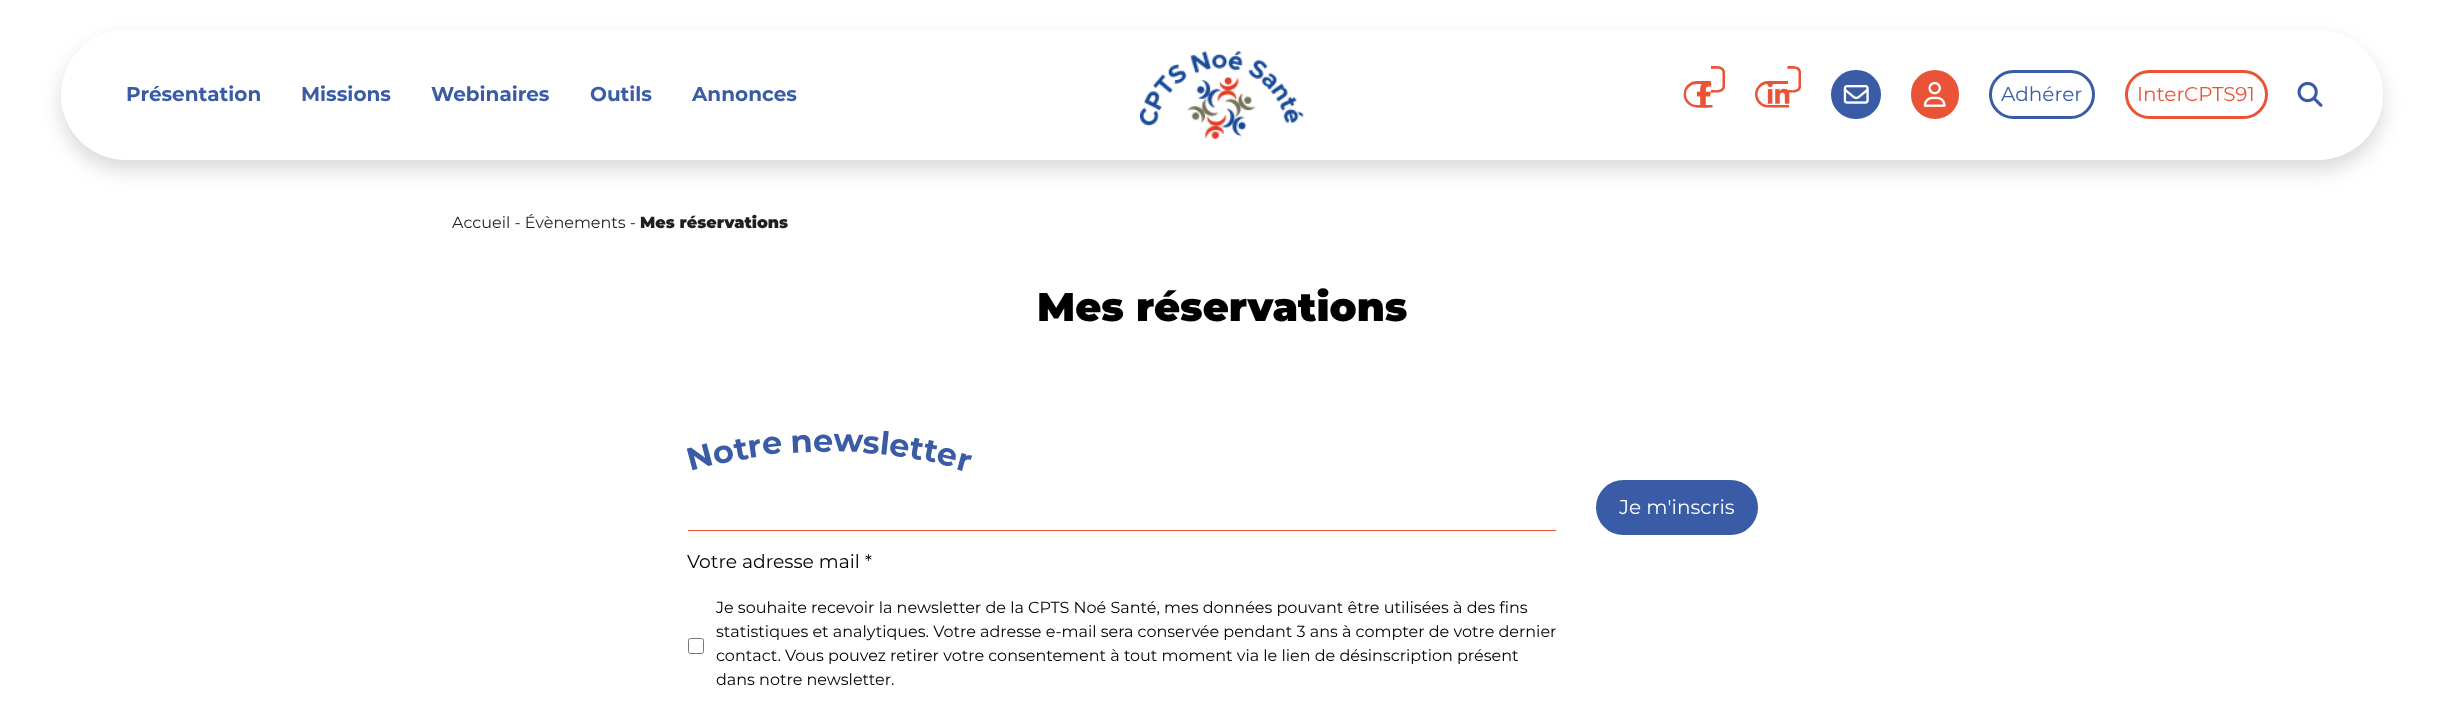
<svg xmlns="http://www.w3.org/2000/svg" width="2443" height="720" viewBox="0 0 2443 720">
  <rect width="100%" height="100%" fill="#fff"/>
  <rect x="61" y="40" width="2322" height="130" rx="65" fill="#00000026" filter="blur(10px)"/>
  <rect x="61" y="30" width="2322" height="130" rx="65" fill="#fff"/>
  <image x="1140" y="51" width="164" height="88" href="img/1.png"/>
  <path d="M1697 81H1712.5V107.5C1707 107.5 1696 108.5 1692 106.5C1678.5 101 1682.5 81 1697 81ZM1697 84H1712.5V105H1697C1691 105 1686 100 1686 94.5C1686 88.5 1691 84 1697 84Z" fill="#ea5336" fill-rule="evenodd"/>
  <path d="M1711 66H1718C1722 66 1725 69 1725 73V86C1725 90 1722 93 1718 93H1711Z" fill="#fff"/>
  <path d="M1711 66C1716.5 66 1723.5 65 1725 71.5V87C1723.5 93.5 1716.5 92.5 1711 92.5ZM1711 69C1715 69 1721.5 67.5 1722.5 72V86.5C1721.5 91.5 1715 90 1711 90Z" fill="#ea5336" fill-rule="evenodd"/>
  <image x="1696" y="82" width="16" height="23" href="img/2.png"/>
  <path d="M1768 81H1789V107.5H1768C1761 107.5 1755 101.5 1755 94.5C1755 87 1761 81 1768 81ZM1768 84H1789V105H1768C1762.5 105 1757.5 100 1757.5 94.5C1757.5 88.5 1762.5 84 1768 84Z" fill="#ea5336" fill-rule="evenodd"/>
  <path d="M1788 66H1794.5C1798 66 1801 69 1801 72.5V86.5C1801 90 1798 93 1794.5 93H1788Z" fill="#fff"/>
  <path d="M1787.5 66C1792.5 66 1800 65 1801 71.5V87C1800 93.5 1792.5 92.5 1787.5 92.5ZM1787.5 69C1791 69 1797.5 67.5 1798.5 72V86.5C1797.5 91.5 1791 90 1787.5 90Z" fill="#ea5336" fill-rule="evenodd"/>
  <image x="1767" y="84" width="23" height="20" href="img/3.png"/>
  <rect x="1832.5" y="71.5" width="47" height="46" rx="23" fill="#3a5ca6" stroke="#3a5ca6" stroke-width="3"/>
  <image x="1843" y="85" width="26" height="19" href="img/4.png"/>
  <rect x="1912.5" y="71.5" width="45" height="46" rx="22.5" fill="#ea5336" stroke="#ea5336" stroke-width="3"/>
  <image x="1923" y="81" width="23" height="26" href="img/5.png"/>
  <rect x="1990.5" y="71.5" width="103" height="46" rx="23" fill="none" stroke="#3a5ca6" stroke-width="3"/>
  <rect x="2126.5" y="71.5" width="140" height="46" rx="23" fill="none" stroke="#ea5336" stroke-width="3"/>
  <image x="2297" y="81" width="26" height="26" href="img/6.png"/>
  <rect x="1597.5" y="481.5" width="159" height="52" rx="26" fill="#3a5ca6" stroke="#3a5ca6" stroke-width="3"/>
  <path d="M688 530h868v1H688z" fill="#ea5336"/>
  <rect x="688.5" y="638.5" width="15" height="15" rx="2" fill="none" stroke="#767676"/>
  <g font-family="'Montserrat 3'" font-size="20" font-weight="100" fill="#3a5ca6">
    <text x="126" y="101">Présentation</text>
    <text x="301" y="101">Missions</text>
    <text x="431" y="101">Webinaires</text>
    <text x="590" y="101">Outils</text>
    <text x="692" y="101">Annonces</text>
  </g>
  <text x="2001" y="101" font-family="Montserrat" font-size="20" font-weight="100" fill="#3a5ca6">Adhérer</text>
  <text x="2137" y="101" font-family="Montserrat" font-size="20" font-weight="100" fill="#ea5336">InterCPTS91</text>
  <text x="452" y="228" font-family="Montserrat" font-size="16" font-weight="100" fill="#1f1f1f">Accueil - Évènements -</text>
  <text x="640" y="228" font-family="'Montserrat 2'" font-size="16" font-weight="100" fill="#1f1f1f">Mes réservations</text>
  <text x="1037" y="321" font-family="'Montserrat 2'" font-size="40" font-weight="100" fill="#000">Mes réservations</text>
  <g font-family="'Montserrat 3'" font-size="32" font-weight="100" fill="#3a5ca6">
    <text x="690" y="471" transform="rotate(-15 690 471)">N</text>
    <text x="715" y="465" transform="rotate(-12 715 465)">o</text>
    <text x="736" y="461" transform="rotate(-10 736 461)">t</text>
    <text x="749" y="458" transform="rotate(-8 749 458)">r</text>
    <text x="763" y="455" transform="rotate(-6 763 455)">e</text>
    <text x="791" y="453" transform="rotate(-3 791 453)">n</text>
    <text x="813" y="452">e</text>
    <text x="833" y="451" transform="rotate(2 833 451)">w</text>
    <text x="862" y="453" transform="rotate(4 862 453)">s</text>
    <text x="879" y="454" transform="rotate(6 879 454)">l</text>
    <text x="888" y="455" transform="rotate(8 888 455)">e</text>
    <text x="908" y="458" transform="rotate(10 908 458)">t</text>
    <text x="922" y="460" transform="rotate(11 922 460)">t</text>
    <text x="935" y="463" transform="rotate(13 935 463)">e</text>
    <text x="955" y="469" transform="rotate(15 955 469)">r</text>
  </g>
  <text x="1619" y="514" font-family="Montserrat" font-size="20" font-weight="100" fill="#fff">Je m'inscris</text>
  <text x="687" y="568" font-family="Montserrat" font-size="18.75" font-weight="100" fill="#000">Votre adresse mail *</text>
  <g font-family="Montserrat" font-size="16" font-weight="100" fill="#000">
    <text x="716" y="613">Je souhaite recevoir la newsletter de la CPTS Noé Santé, mes données pouvant être utilisées à des fins</text>
    <text x="716" y="637">statistiques et analytiques. Votre adresse e-mail sera conservée pendant 3 ans à compter de votre dernier</text>
    <text x="716" y="661">contact. Vous pouvez retirer votre consentement à tout moment via le lien de désinscription présent</text>
    <text x="716" y="685">dans notre newsletter.</text>
  </g>
</svg>
